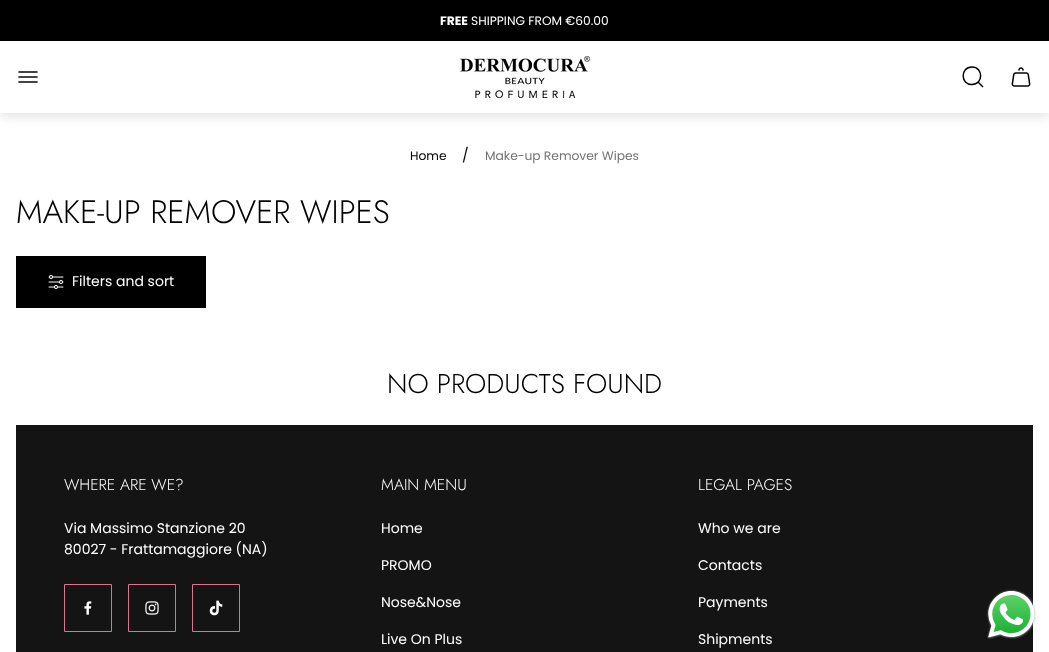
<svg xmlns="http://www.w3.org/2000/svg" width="1049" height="652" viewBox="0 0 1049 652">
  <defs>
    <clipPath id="clip1"><path d="M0 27H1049V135H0ZM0 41H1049V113H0Z" clip-rule="evenodd"/></clipPath>
  </defs>
  <rect width="100%" height="100%" fill="#fff"/>
  <path d="M0 0h1049v41H0z" fill="#000"/>
  <g clip-path="url(#clip1)">
    <path d="M0 45h1049v72H0z" fill="#0000001a" filter="blur(5.5px)"/>
  </g>
  <image x="18" y="71" width="20" height="12" href="img/1.png"/>
  <image x="460" y="56" width="130" height="42" href="img/2.png"/>
  <path d="M978 82L983 87M972 67C983.5 67 983.5 84.5 972 84.5C960.5 85 960 67 972 67Z" fill="none" stroke="#000" stroke-width="1.5"/>
  <image x="1011" y="67" width="20" height="20" href="img/3.png"/>
  <path d="M16 256h190v52H16z" fill="#000"/>
  <image x="48" y="275" width="16" height="14" href="img/4.png"/>
  <path d="M16 425h1017v227H16z" fill="#151414"/>
  <path d="M64.5 584.5h47v47H64.5z" fill="none" stroke="#de718f"/>
  <image x="84" y="601" width="8" height="14" href="img/5.png"/>
  <path d="M128.5 584.5h47v47H128.5z" fill="none" stroke="#de718f"/>
  <image x="145" y="601" width="14" height="14" href="img/6.png"/>
  <path d="M192.5 584.5h47v47H192.5z" fill="none" stroke="#de718f"/>
  <image x="209" y="600" width="14" height="16" href="img/7.png"/>
  <image x="986" y="589" width="50" height="50" href="img/8.png"/>
  <text x="440" y="25" font-family="Poppins" font-size="12.25" font-weight="bold" fill="#fff">FREE</text>
  <text x="471" y="25" font-family="Poppins" font-size="12.25" fill="#fff">SHIPPING FROM €60.00</text>
  <text x="410" y="160" font-family="Poppins" font-size="12.25" fill="#000">Home</text>
  <text x="462" y="160" font-family="Poppins" font-size="14" fill="#000">/</text>
  <text x="485" y="160" font-family="Poppins" font-size="12.25" fill="#737373">Make-up Remover Wipes</text>
  <text x="16" y="223" font-family="Jost" font-size="32.4" font-weight="300" fill="#000">MAKE-UP REMOVER WIPES</text>
  <text x="72" y="286" font-family="Poppins" font-size="14" fill="#fff">Filters and sort</text>
  <text x="387" y="393" font-family="Jost" font-size="27.1" font-weight="300" fill="#000">NO PRODUCTS FOUND</text>
  <text x="64" y="490" font-family="Jost" font-size="15.75" font-weight="300" fill="#fff">WHERE ARE WE?</text>
  <g font-family="Poppins" font-size="14" fill="#fff">
    <text x="64" y="533">Via Massimo Stanzione 20</text>
    <text x="64" y="554">80027 - Frattamaggiore (NA)</text>
  </g>
  <text x="381" y="490" font-family="Jost" font-size="15.75" font-weight="300" fill="#fff">MAIN MENU</text>
  <g font-family="Poppins" font-size="14" fill="#fff">
    <text x="381" y="533">Home</text>
    <text x="381" y="570">PROMO</text>
    <text x="381" y="607">Nose&amp;Nose</text>
    <text x="381" y="644">Live On Plus</text>
  </g>
  <text x="698" y="490" font-family="Jost" font-size="15.75" font-weight="300" fill="#fff">LEGAL PAGES</text>
  <g font-family="Poppins" font-size="14" fill="#fff">
    <text x="698" y="533">Who we are</text>
    <text x="698" y="570">Contacts</text>
    <text x="698" y="607">Payments</text>
    <text x="698" y="644">Shipments</text>
  </g>
</svg>
